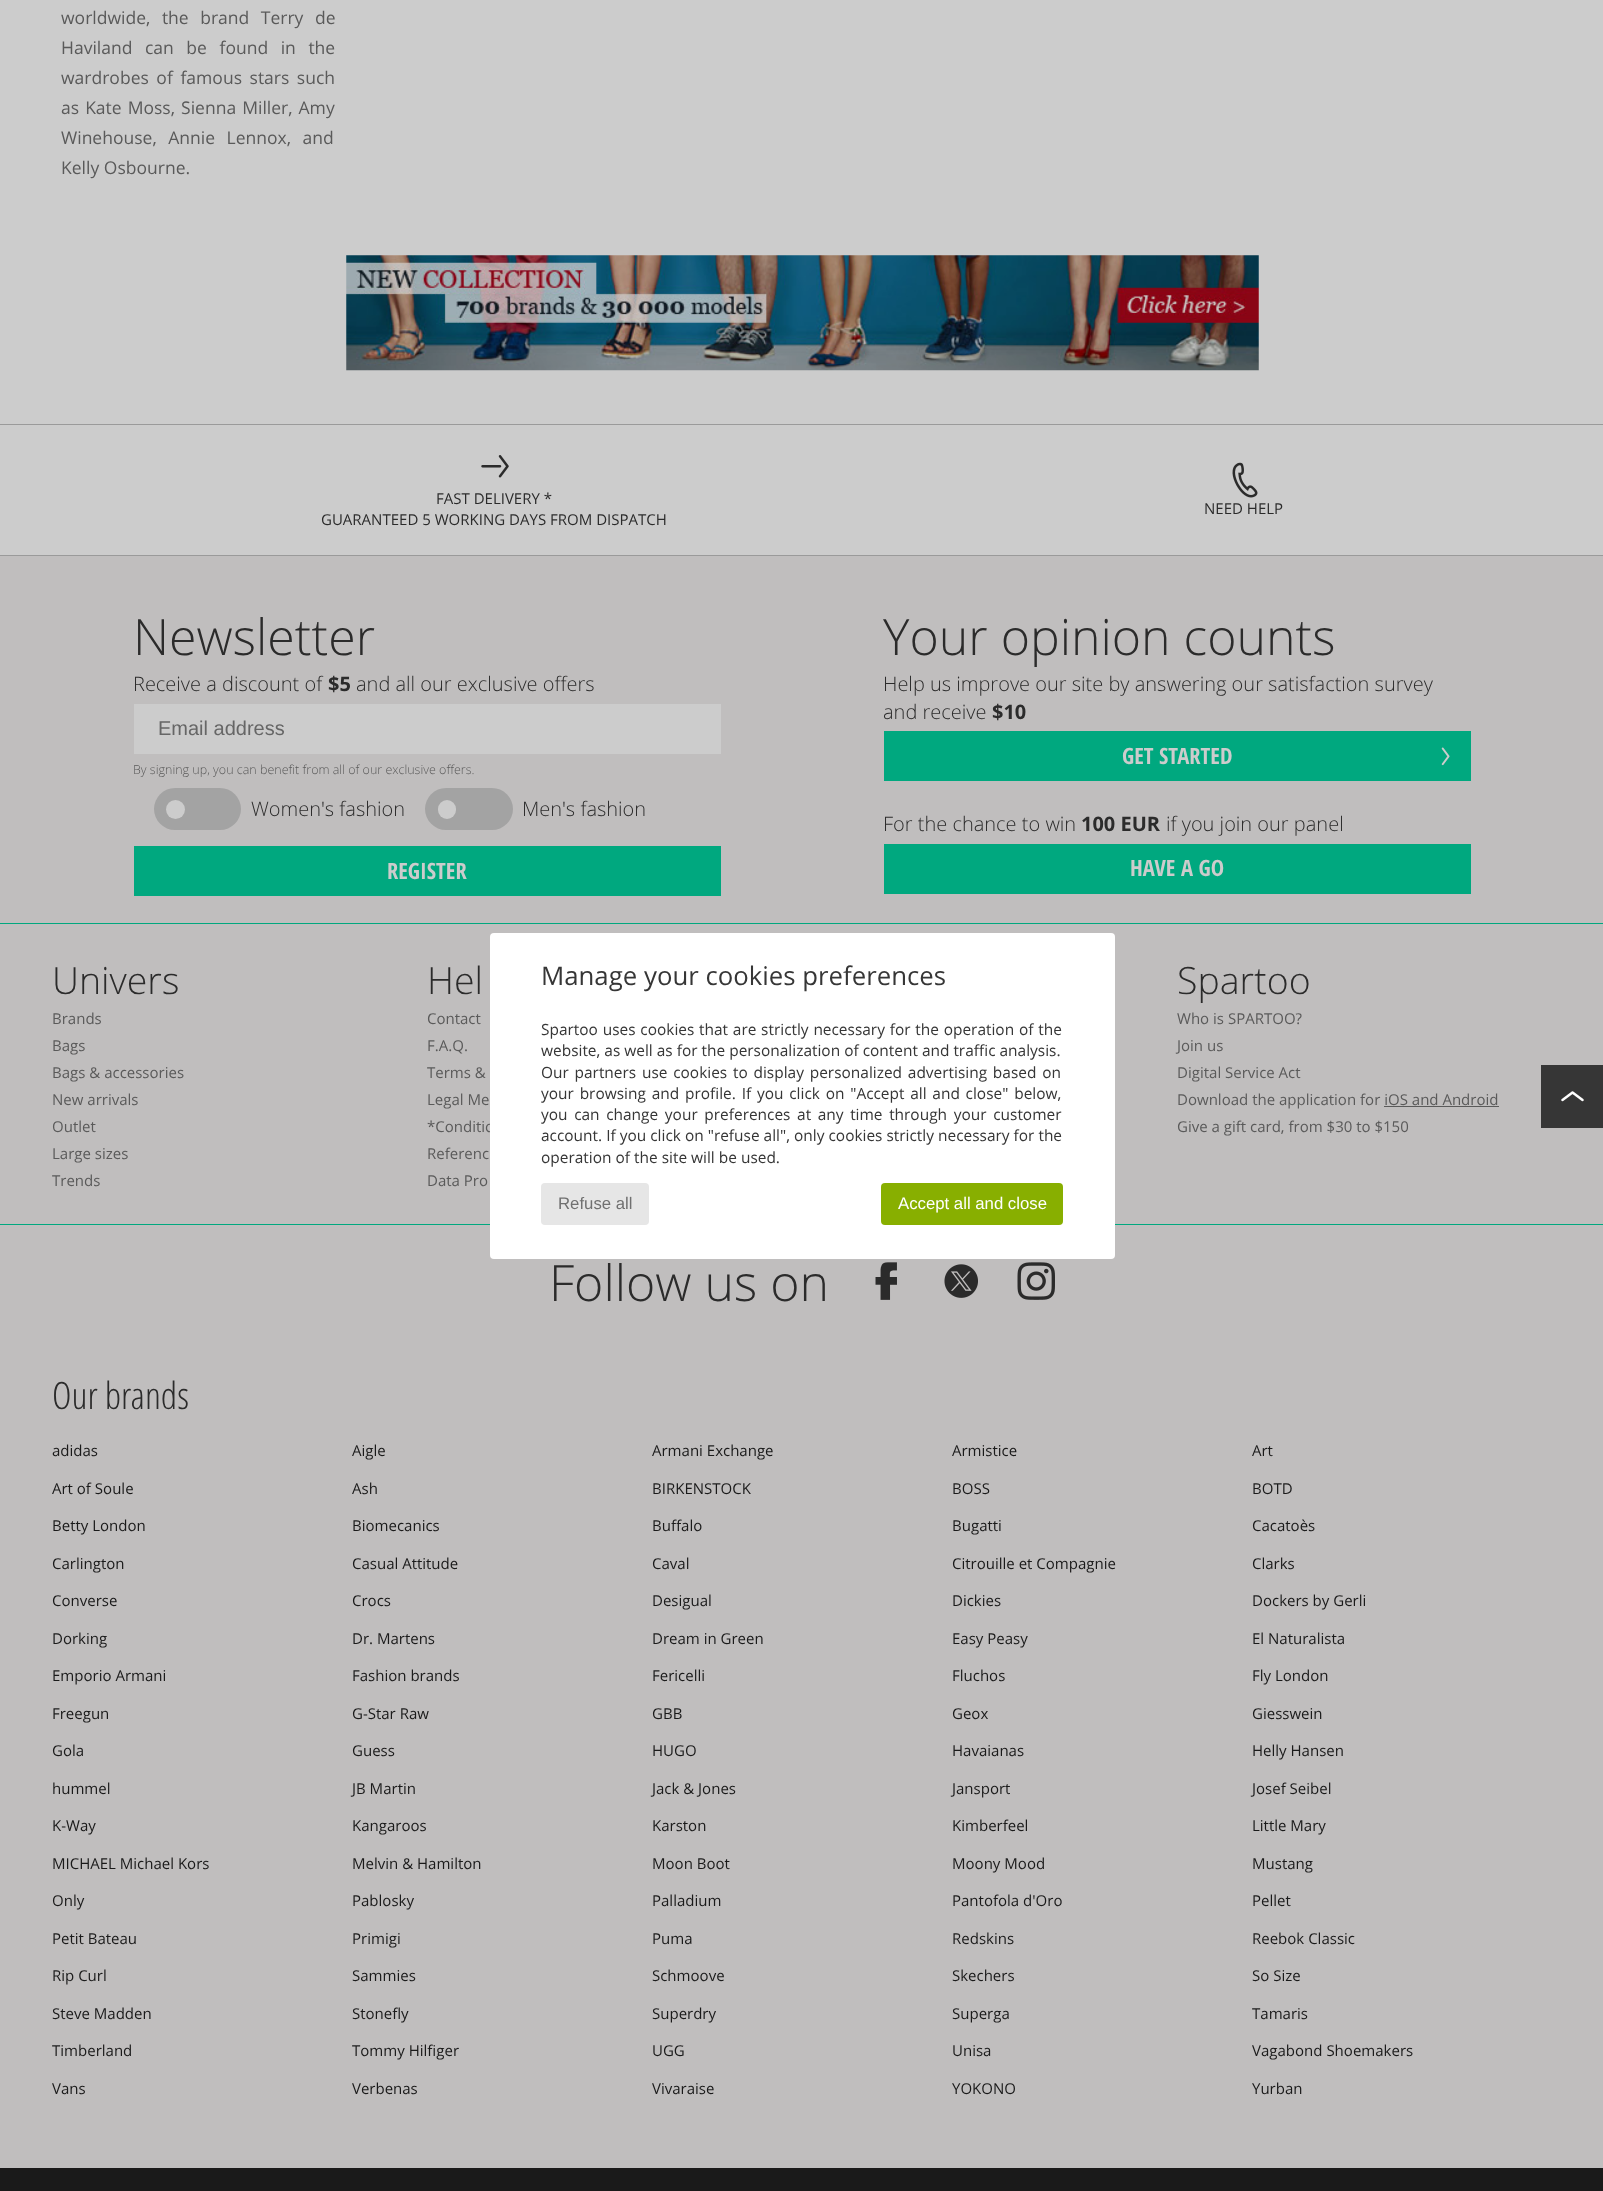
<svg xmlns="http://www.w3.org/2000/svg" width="1603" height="2191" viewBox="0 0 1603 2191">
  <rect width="100%" height="100%" fill="#ccc"/>
  <image x="346" y="255" width="913" height="116" href="img/1.png"/>
  <path d="M0 556h1603v1612H0z" fill="#c0bebe"/>
  <path d="M0 424h1603v1H0z" fill="#9a9a9a"/>
  <path d="M0 555h1603v1H0z" fill="#9a9a9a"/>
  <image x="481" y="455" width="28" height="23" href="img/2.png"/>
  <image x="1232" y="462" width="26" height="36" href="img/3.png"/>
  <path d="M134 704h587v50H134z" fill="#ccc"/>
  <rect x="154" y="788" width="87" height="42" rx="21" fill="#a3a3a3"/>
  <circle cx="175.5" cy="809.5" r="9.5" fill="#ccc"/>
  <rect x="425" y="788" width="88" height="42" rx="21" fill="#a3a3a3"/>
  <rect x="438" y="800" width="18" height="19" rx="9" fill="#ccc"/>
  <path d="M134 846h587v50H134z" fill="#00a87f"/>
  <path d="M884 731h587v50H884z" fill="#00a87f"/>
  <image x="1441" y="747" width="9" height="19" href="img/4.png"/>
  <path d="M884 844h587v50H884z" fill="#00a87f"/>
  <path d="M0 923h1603v1H0z" fill="#00a87f"/>
  <path d="M1384 1106h115v1H1384z" fill="#5a5a5a"/>
  <path d="M0 1224h1603v1H0z" fill="#00a87f"/>
  <image x="875" y="1262" width="22" height="38" href="img/5.png"/>
  <image x="944" y="1264" width="34" height="34" href="img/6.png"/>
  <image x="1017" y="1262" width="38" height="38" href="img/7.png"/>
  <path d="M0 2168h1603v23H0z" fill="#1a1a1a"/>
  <path d="M1541 1065h62v63H1541z" fill="#363636"/>
  <image x="1561" y="1091" width="23" height="11" href="img/8.png"/>
  <g font-family="Open Sans" font-size="17.5" fill="#5a5a5a">
    <text x="61" y="24" word-spacing="7">worldwide, the brand Terry de</text>
    <text x="61" y="54" word-spacing="8">Haviland can be found in the</text>
    <text x="61" y="84" word-spacing="3">wardrobes of famous stars such</text>
    <text x="61" y="114" word-spacing="1.5">as Kate Moss, Sienna Miller, Amy</text>
    <text x="61" y="144" word-spacing="7">Winehouse, Annie Lennox, and</text>
    <text x="61" y="174">Kelly Osbourne.</text>
  </g>
  <g font-family="Open Sans" font-size="15" fill="#2b2b2b">
    <text x="436" y="504">FAST DELIVERY *</text>
    <text x="321" y="525">GUARANTEED 5 WORKING DAYS FROM DISPATCH</text>
    <text x="1204" y="514">NEED HELP</text>
  </g>
  <text x="133" y="655" font-family="Open Sans" font-size="50" font-weight="300" fill="#2b2b2b">Newsletter</text>
  <text x="133" y="691" font-family="Open Sans" font-size="20" font-weight="300" fill="#2b2b2b">Receive a discount of</text>
  <text x="328" y="691" font-family="Open Sans" font-size="20" font-weight="bold" fill="#2b2b2b">$5</text>
  <text x="356" y="691" font-family="Open Sans" font-size="20" font-weight="300" fill="#2b2b2b">and all our exclusive offers</text>
  <text x="158" y="735" font-family="Liberation Sans" font-size="20" fill="#666">Email address</text>
  <text x="133" y="774" font-family="Open Sans" font-size="12.5" font-weight="300" fill="#5a5a5a">By signing up, you can benefit from all of our exclusive offers.</text>
  <g font-family="Open Sans" font-size="20" font-weight="300" fill="#2b2b2b">
    <text x="251" y="816">Women's fashion</text>
    <text x="522" y="816">Men's fashion</text>
  </g>
  <text x="387" y="879" font-family="Open Sans Condensed" font-size="22.5" font-weight="bold" fill="#ccc">REGISTER</text>
  <text x="883" y="655" font-family="Open Sans" font-size="50" font-weight="300" fill="#2b2b2b">Your opinion counts</text>
  <g font-family="Open Sans" font-size="20" font-weight="300" fill="#2b2b2b">
    <text x="883" y="691">Help us improve our site by answering our satisfaction survey</text>
    <text x="883" y="719">and receive</text>
  </g>
  <text x="992" y="719" font-family="Open Sans" font-size="20" font-weight="bold" fill="#2b2b2b">$10</text>
  <text x="1122" y="764" font-family="Open Sans Condensed" font-size="22.5" font-weight="bold" fill="#ccc">GET STARTED</text>
  <text x="883" y="831" font-family="Open Sans" font-size="20" font-weight="300" fill="#2b2b2b">For the chance to win</text>
  <text x="1081" y="831" font-family="Open Sans" font-size="20" font-weight="bold" fill="#2b2b2b">100 EUR</text>
  <text x="1166" y="831" font-family="Open Sans" font-size="20" font-weight="300" fill="#2b2b2b">if you join our panel</text>
  <text x="1130" y="876" font-family="Open Sans Condensed" font-size="22.5" font-weight="bold" fill="#ccc">HAVE A GO</text>
  <text x="52" y="994" font-family="Open Sans" font-size="37.5" font-weight="300" fill="#2b2b2b">Univers</text>
  <g font-family="Open Sans" font-size="15" fill="#5a5a5a">
    <text x="52" y="1024">Brands</text>
    <text x="52" y="1051">Bags</text>
    <text x="52" y="1078">Bags &amp; accessories</text>
    <text x="52" y="1105">New arrivals</text>
    <text x="52" y="1132">Outlet</text>
    <text x="52" y="1159">Large sizes</text>
    <text x="52" y="1186">Trends</text>
  </g>
  <text x="427" y="994" font-family="Open Sans" font-size="37.5" font-weight="300" fill="#2b2b2b">Hel</text>
  <g font-family="Open Sans" font-size="15" fill="#5a5a5a">
    <text x="427" y="1024">Contact</text>
    <text x="427" y="1051">F.A.Q.</text>
    <text x="427" y="1078">Terms &amp;</text>
    <text x="427" y="1105">Legal Me</text>
    <text x="427" y="1132">*Conditio</text>
    <text x="427" y="1159">Referenc</text>
    <text x="427" y="1186">Data Pro</text>
  </g>
  <text x="1177" y="994" font-family="Open Sans" font-size="37.5" font-weight="300" fill="#2b2b2b">Spartoo</text>
  <g font-family="Open Sans" font-size="15" fill="#5a5a5a">
    <text x="1177" y="1024">Who is SPARTOO?</text>
    <text x="1177" y="1051">Join us</text>
    <text x="1177" y="1078">Digital Service Act</text>
    <text x="1177" y="1105">Download the application for iOS and Android</text>
    <text x="1177" y="1132">Give a gift card, from $30 to $150</text>
  </g>
  <text x="549" y="1301" font-family="Open Sans" font-size="50" font-weight="300" fill="#2b2b2b">Follow us on</text>
  <text x="52" y="1409" font-family="Open Sans Condensed" font-size="37.5" font-weight="300" fill="#2b2b2b">Our brands</text>
  <g font-family="Open Sans" font-size="15" fill="#1a1a1a">
    <text x="52" y="1456">adidas</text>
    <text x="352" y="1456">Aigle</text>
    <text x="652" y="1456">Armani Exchange</text>
    <text x="952" y="1456">Armistice</text>
    <text x="1252" y="1456">Art</text>
    <text x="52" y="1494">Art of Soule</text>
    <text x="352" y="1494">Ash</text>
    <text x="652" y="1494">BIRKENSTOCK</text>
    <text x="952" y="1494">BOSS</text>
    <text x="1252" y="1494">BOTD</text>
    <text x="52" y="1531">Betty London</text>
    <text x="352" y="1531">Biomecanics</text>
    <text x="652" y="1531">Buffalo</text>
    <text x="952" y="1531">Bugatti</text>
    <text x="1252" y="1531">Cacatoès</text>
    <text x="52" y="1569">Carlington</text>
    <text x="352" y="1569">Casual Attitude</text>
    <text x="652" y="1569">Caval</text>
    <text x="952" y="1569">Citrouille et Compagnie</text>
    <text x="1252" y="1569">Clarks</text>
    <text x="52" y="1606">Converse</text>
    <text x="352" y="1606">Crocs</text>
    <text x="652" y="1606">Desigual</text>
    <text x="952" y="1606">Dickies</text>
    <text x="1252" y="1606">Dockers by Gerli</text>
    <text x="52" y="1644">Dorking</text>
    <text x="352" y="1644">Dr. Martens</text>
    <text x="652" y="1644">Dream in Green</text>
    <text x="952" y="1644">Easy Peasy</text>
    <text x="1252" y="1644">El Naturalista</text>
    <text x="52" y="1681">Emporio Armani</text>
    <text x="352" y="1681">Fashion brands</text>
    <text x="652" y="1681">Fericelli</text>
    <text x="952" y="1681">Fluchos</text>
    <text x="1252" y="1681">Fly London</text>
    <text x="52" y="1719">Freegun</text>
    <text x="352" y="1719">G-Star Raw</text>
    <text x="652" y="1719">GBB</text>
    <text x="952" y="1719">Geox</text>
    <text x="1252" y="1719">Giesswein</text>
    <text x="52" y="1756">Gola</text>
    <text x="352" y="1756">Guess</text>
    <text x="652" y="1756">HUGO</text>
    <text x="952" y="1756">Havaianas</text>
    <text x="1252" y="1756">Helly Hansen</text>
    <text x="52" y="1794">hummel</text>
    <text x="352" y="1794">JB Martin</text>
    <text x="652" y="1794">Jack &amp; Jones</text>
    <text x="952" y="1794">Jansport</text>
    <text x="1252" y="1794">Josef Seibel</text>
    <text x="52" y="1831">K-Way</text>
    <text x="352" y="1831">Kangaroos</text>
    <text x="652" y="1831">Karston</text>
    <text x="952" y="1831">Kimberfeel</text>
    <text x="1252" y="1831">Little Mary</text>
    <text x="52" y="1869">MICHAEL Michael Kors</text>
    <text x="352" y="1869">Melvin &amp; Hamilton</text>
    <text x="652" y="1869">Moon Boot</text>
    <text x="952" y="1869">Moony Mood</text>
    <text x="1252" y="1869">Mustang</text>
    <text x="52" y="1906">Only</text>
    <text x="352" y="1906">Pablosky</text>
    <text x="652" y="1906">Palladium</text>
    <text x="952" y="1906">Pantofola d'Oro</text>
    <text x="1252" y="1906">Pellet</text>
    <text x="52" y="1944">Petit Bateau</text>
    <text x="352" y="1944">Primigi</text>
    <text x="652" y="1944">Puma</text>
    <text x="952" y="1944">Redskins</text>
    <text x="1252" y="1944">Reebok Classic</text>
    <text x="52" y="1981">Rip Curl</text>
    <text x="352" y="1981">Sammies</text>
    <text x="652" y="1981">Schmoove</text>
    <text x="952" y="1981">Skechers</text>
    <text x="1252" y="1981">So Size</text>
    <text x="52" y="2019">Steve Madden</text>
    <text x="352" y="2019">Stonefly</text>
    <text x="652" y="2019">Superdry</text>
    <text x="952" y="2019">Superga</text>
    <text x="1252" y="2019">Tamaris</text>
    <text x="52" y="2056">Timberland</text>
    <text x="352" y="2056">Tommy Hilfiger</text>
    <text x="652" y="2056">UGG</text>
    <text x="952" y="2056">Unisa</text>
    <text x="1252" y="2056">Vagabond Shoemakers</text>
    <text x="52" y="2094">Vans</text>
    <text x="352" y="2094">Verbenas</text>
    <text x="652" y="2094">Vivaraise</text>
    <text x="952" y="2094">YOKONO</text>
    <text x="1252" y="2094">Yurban</text>
  </g>
  <rect x="490" y="933" width="625" height="326" rx="4" fill="#fff"/>
  <text x="541" y="985" font-family="Open Sans" font-size="25.75" fill="#363636">Manage your cookies preferences</text>
  <g font-family="Open Sans" font-size="15.45" fill="#363636">
    <text x="541" y="1035" word-spacing="0.75">Spartoo uses cookies that are strictly necessary for the operation of the</text>
    <text x="541" y="1056">website, as well as for the personalization of content and traffic analysis.</text>
    <text x="541" y="1078" word-spacing="1.75">Our partners use cookies to display personalized advertising based on</text>
    <text x="541" y="1099" word-spacing="1.75">your browsing and profile. If you click on "Accept all and close" below,</text>
    <text x="541" y="1120" word-spacing="2.6">you can change your preferences at any time through your customer</text>
    <text x="541" y="1141">account. If you click on "refuse all", only cookies strictly necessary for the</text>
    <text x="541" y="1163">operation of the site will be used.</text>
  </g>
  <rect x="541" y="1183" width="108" height="42" rx="4" fill="#e6e6e6"/>
  <text x="558" y="1209" font-family="Liberation Sans" font-size="16.75" fill="#707070">Refuse all</text>
  <rect x="881" y="1183" width="182" height="42" rx="4" fill="#88af00"/>
  <text x="898" y="1209" font-family="Liberation Sans" font-size="16.75" fill="#fff">Accept all and close</text>
</svg>
